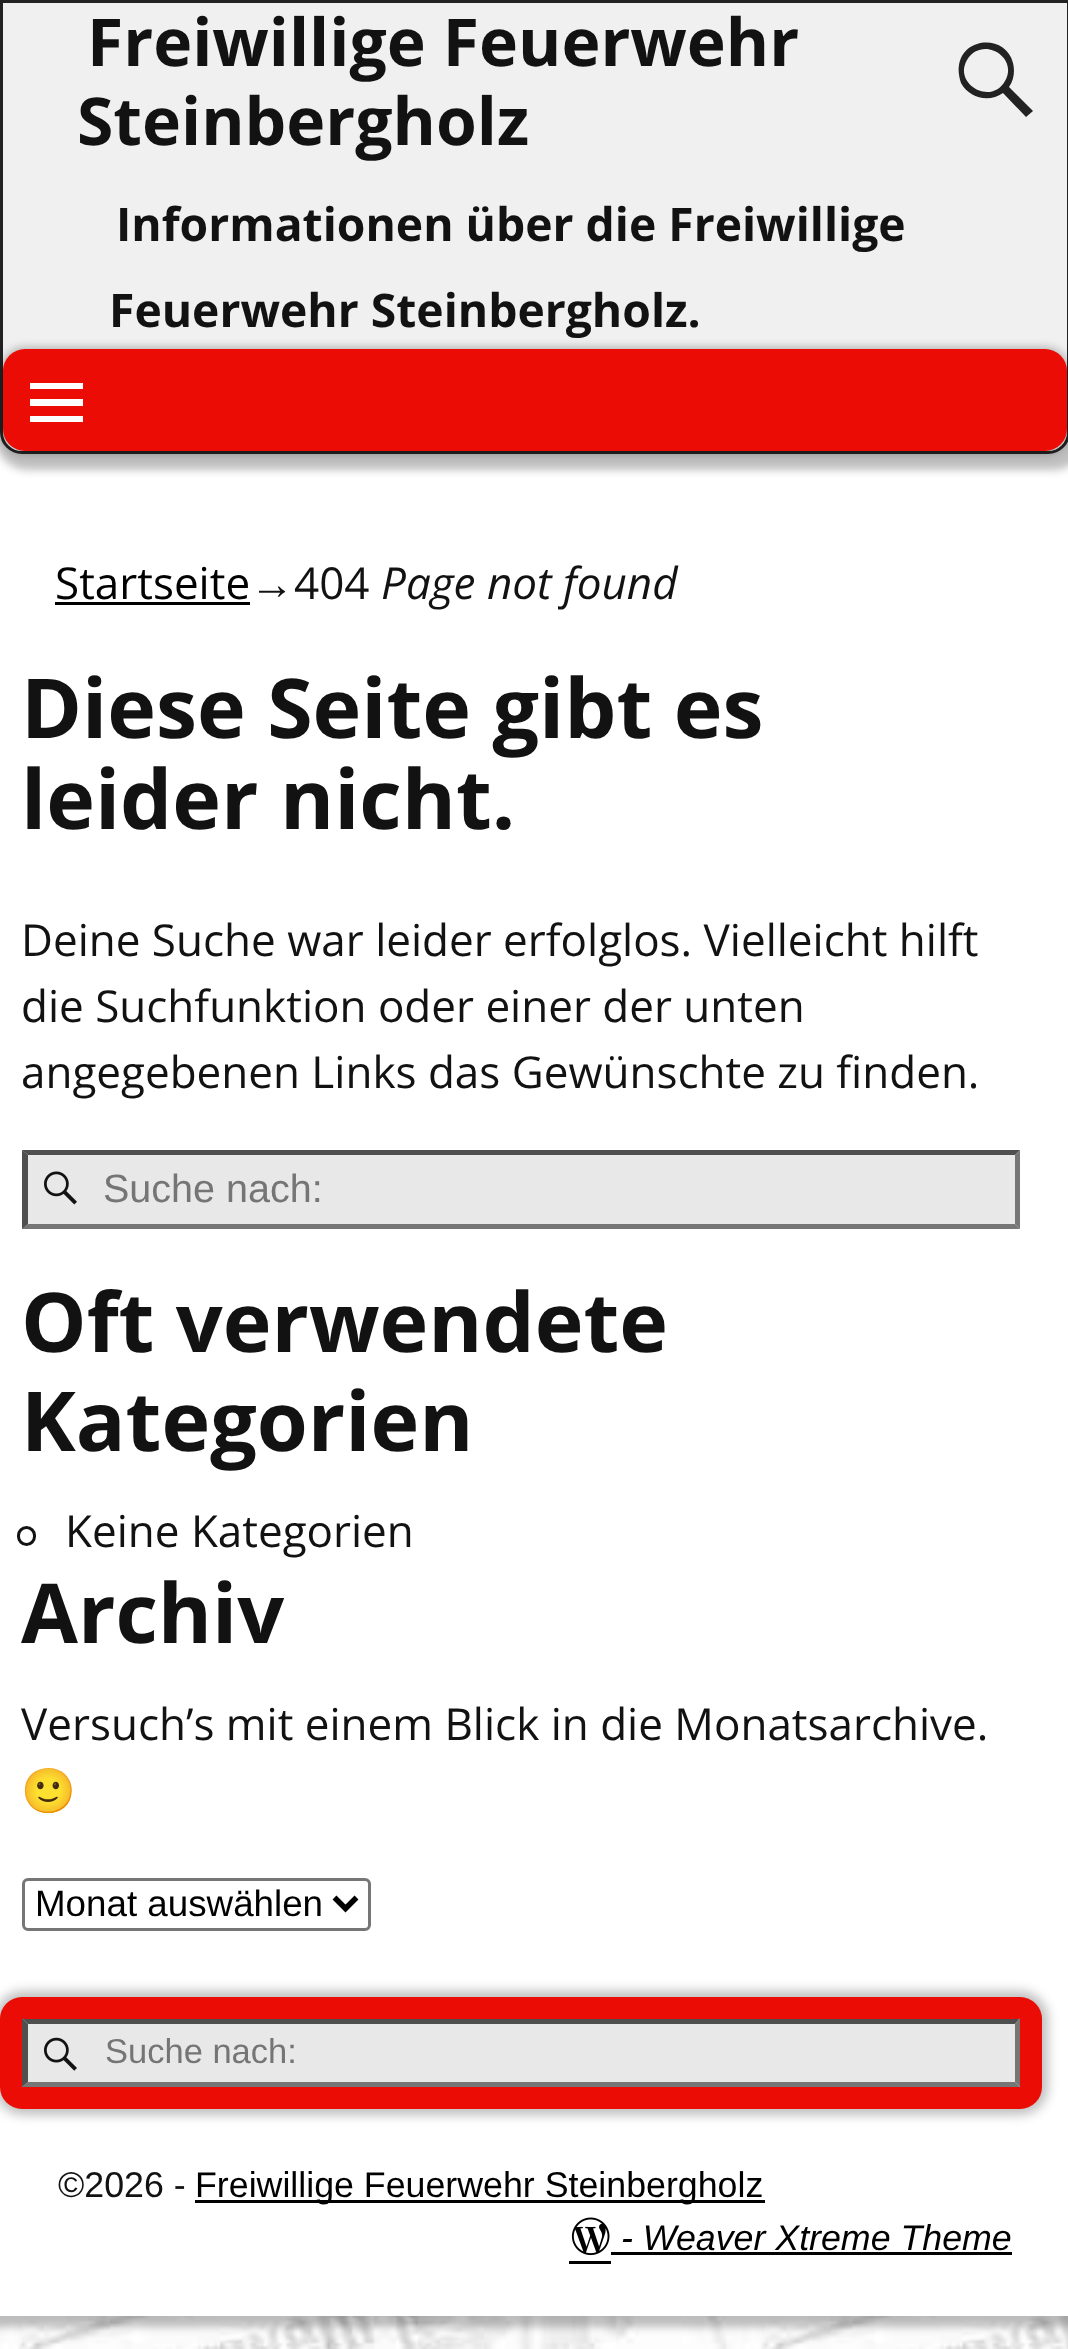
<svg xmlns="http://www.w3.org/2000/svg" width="1068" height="2349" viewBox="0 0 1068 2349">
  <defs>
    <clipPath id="clip1"><path d="M22 2019h998v68H22z"/></clipPath>
  </defs>
  <rect width="100%" height="100%" fill="#fff"/>
  <image x="0" y="2316" width="1068" height="33" href="img/1.png"/>
  <path d="M-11 -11h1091v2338H-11z" fill="#00000040" filter="blur(4px)"/>
  <path d="M0 432h1068v1884H0z" fill="#fff"/>
  <rect x="-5" y="-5" width="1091" height="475" rx="33" fill="#00000040" filter="blur(4px)"/>
  <path d="M1.5 1.5H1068.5V432C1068.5 443.5 1059.5 452.5 1048 452.5H22C10.5 452.5 1.5 443.5 1.5 432Z" fill="#f0f0f0" stroke="#222" stroke-width="3"/>
  <path d="M1033 111L1026 117L1003 93C989 103 969 98 961 83C959 77 958 71 959 65C964 36 1006 35 1013 63C1015 71 1014 80 1009 87ZM967 60C953 84 991 106 1005 81C1019 57 982 35 967 60Z" fill="#222"/>
  <rect y="347" width="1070" height="107" rx="25" fill="#00000040" filter="blur(4px)"/>
  <rect x="3" y="349" width="1064" height="102" rx="22" fill="#ea0c05"/>
  <path d="M30 422V416H83V422ZM30 383H83V389H30ZM30 406V399H83V406Z" fill="#fff"/>
  <path d="M55 602h195v3H55z" fill="#000"/>
  <path d="M22 1150h998v79H22z" fill="#e8e8e8"/>
  <image x="44" y="1171" width="33" height="34" href="img/2.png"/>
  <path d="M22 1150H1020L1015 1155H28Z" fill="#4f4f4f"/>
  <path d="M1020 1150V1229L1015 1224V1155Z" fill="#767676"/>
  <path d="M1020 1229H22L28 1224H1015Z" fill="#767676"/>
  <path d="M22 1229V1150L28 1155V1224Z" fill="#4f4f4f"/>
  <rect x="18.5" y="1527.5" width="16" height="17" rx="8" fill="none" stroke="#121212" stroke-width="3"/>
  <rect x="23.5" y="1879.5" width="346" height="50" rx="4.5" fill="none" stroke="#767676" stroke-width="3"/>
  <path d="M334.5 1897.5L345.5 1908.5L356.5 1897.5" fill="none" stroke="#000" stroke-width="5.5"/>
  <rect x="-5" y="1991" width="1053" height="124" rx="28" fill="#00000040" filter="blur(5.5px)"/>
  <rect y="1997" width="1042" height="112" rx="22" fill="#ea0c05"/>
  <path d="M22 2019h998v68H22z" fill="#e8e8e8"/>
  <image x="44" y="2037" width="33" height="34" href="img/3.png"/>
  <g clip-path="url(#clip1)">
    <path d="M22 2018H1020L1015 2024H28Z" fill="#4f4f4f"/>
  </g>
  <path d="M1020 2018V2087L1015 2082V2024Z" fill="#767676"/>
  <path d="M1020 2087H22L28 2082H1015Z" fill="#767676"/>
  <path d="M22 2087V2018L28 2024V2082Z" fill="#4f4f4f"/>
  <path d="M195 2200h570v3H195z" fill="#000"/>
  <image x="571" y="2217" width="39" height="39" href="img/4.png"/>
  <path d="M569 2261h42v3H569z" fill="#000"/>
  <path d="M611 2252h401v3H611z" fill="#000"/>
  <g font-family="Open Sans" font-size="66" font-weight="bold" fill="#121212">
    <text x="87" y="66">Freiwillige Feuerwehr</text>
    <text x="77" y="145">Steinbergholz</text>
  </g>
  <g font-family="Open Sans" font-size="46.25" font-weight="bold" fill="#121212">
    <text x="116" y="241">Informationen über die Freiwillige</text>
    <text x="109" y="327">Feuerwehr Steinbergholz.</text>
  </g>
  <text x="55" y="599" font-family="Open Sans" font-size="44" fill="#000">Startseite</text>
  <text x="250" y="599" font-family="Liberation Sans" font-size="44" fill="#121212">→</text>
  <text x="294" y="599" font-family="Open Sans" font-size="44" fill="#121212">404</text>
  <text x="381" y="599" font-family="Open Sans" font-size="44" font-style="italic" fill="#121212">Page not found</text>
  <g font-family="Open Sans" font-size="82.5" font-weight="bold" fill="#121212">
    <text x="21" y="738">Diese Seite gibt es</text>
    <text x="21" y="829">leider nicht.</text>
  </g>
  <g font-family="Open Sans" font-size="44" fill="#121212">
    <text x="21" y="956">Deine Suche war leider erfolglos. Vielleicht hilft</text>
    <text x="21" y="1022">die Suchfunktion oder einer der unten</text>
    <text x="21" y="1088">angegebenen Links das Gewünschte zu finden.</text>
  </g>
  <text x="103" y="1202" font-family="Liberation Sans" font-size="39.5" fill="#757575">Suche nach:</text>
  <g font-family="Open Sans" font-size="82.5" font-weight="bold" fill="#121212">
    <text x="21" y="1352">Oft verwendete</text>
    <text x="21" y="1451">Kategorien</text>
  </g>
  <text x="65" y="1547" font-family="Open Sans" font-size="44" fill="#121212">Keine Kategorien</text>
  <text x="21" y="1643" font-family="Open Sans" font-size="82.5" font-weight="bold" fill="#121212">Archiv</text>
  <text x="21" y="1740" font-family="Open Sans" font-size="44" fill="#121212">Versuch’s mit einem Blick in die Monatsarchive.</text>
  <text x="21" y="1806" font-family="Noto Color Emoji" font-size="44" fill="#121212">🙂</text>
  <text x="35" y="1916" font-family="Liberation Sans" font-size="36.75" fill="#000">Monat auswählen</text>
  <text x="105" y="2063" font-family="Liberation Sans" font-size="34.5" fill="#757575">Suche nach:</text>
  <text x="58" y="2197" font-family="Liberation Sans" font-size="35.75" fill="#121212">©2026 -</text>
  <text x="195" y="2197" font-family="Liberation Sans" font-size="35.75" fill="#000">Freiwillige Feuerwehr Steinbergholz</text>
  <text x="621" y="2250" font-family="Liberation Sans" font-size="35.75" font-style="italic" fill="#000">- Weaver Xtreme Theme</text>
</svg>
